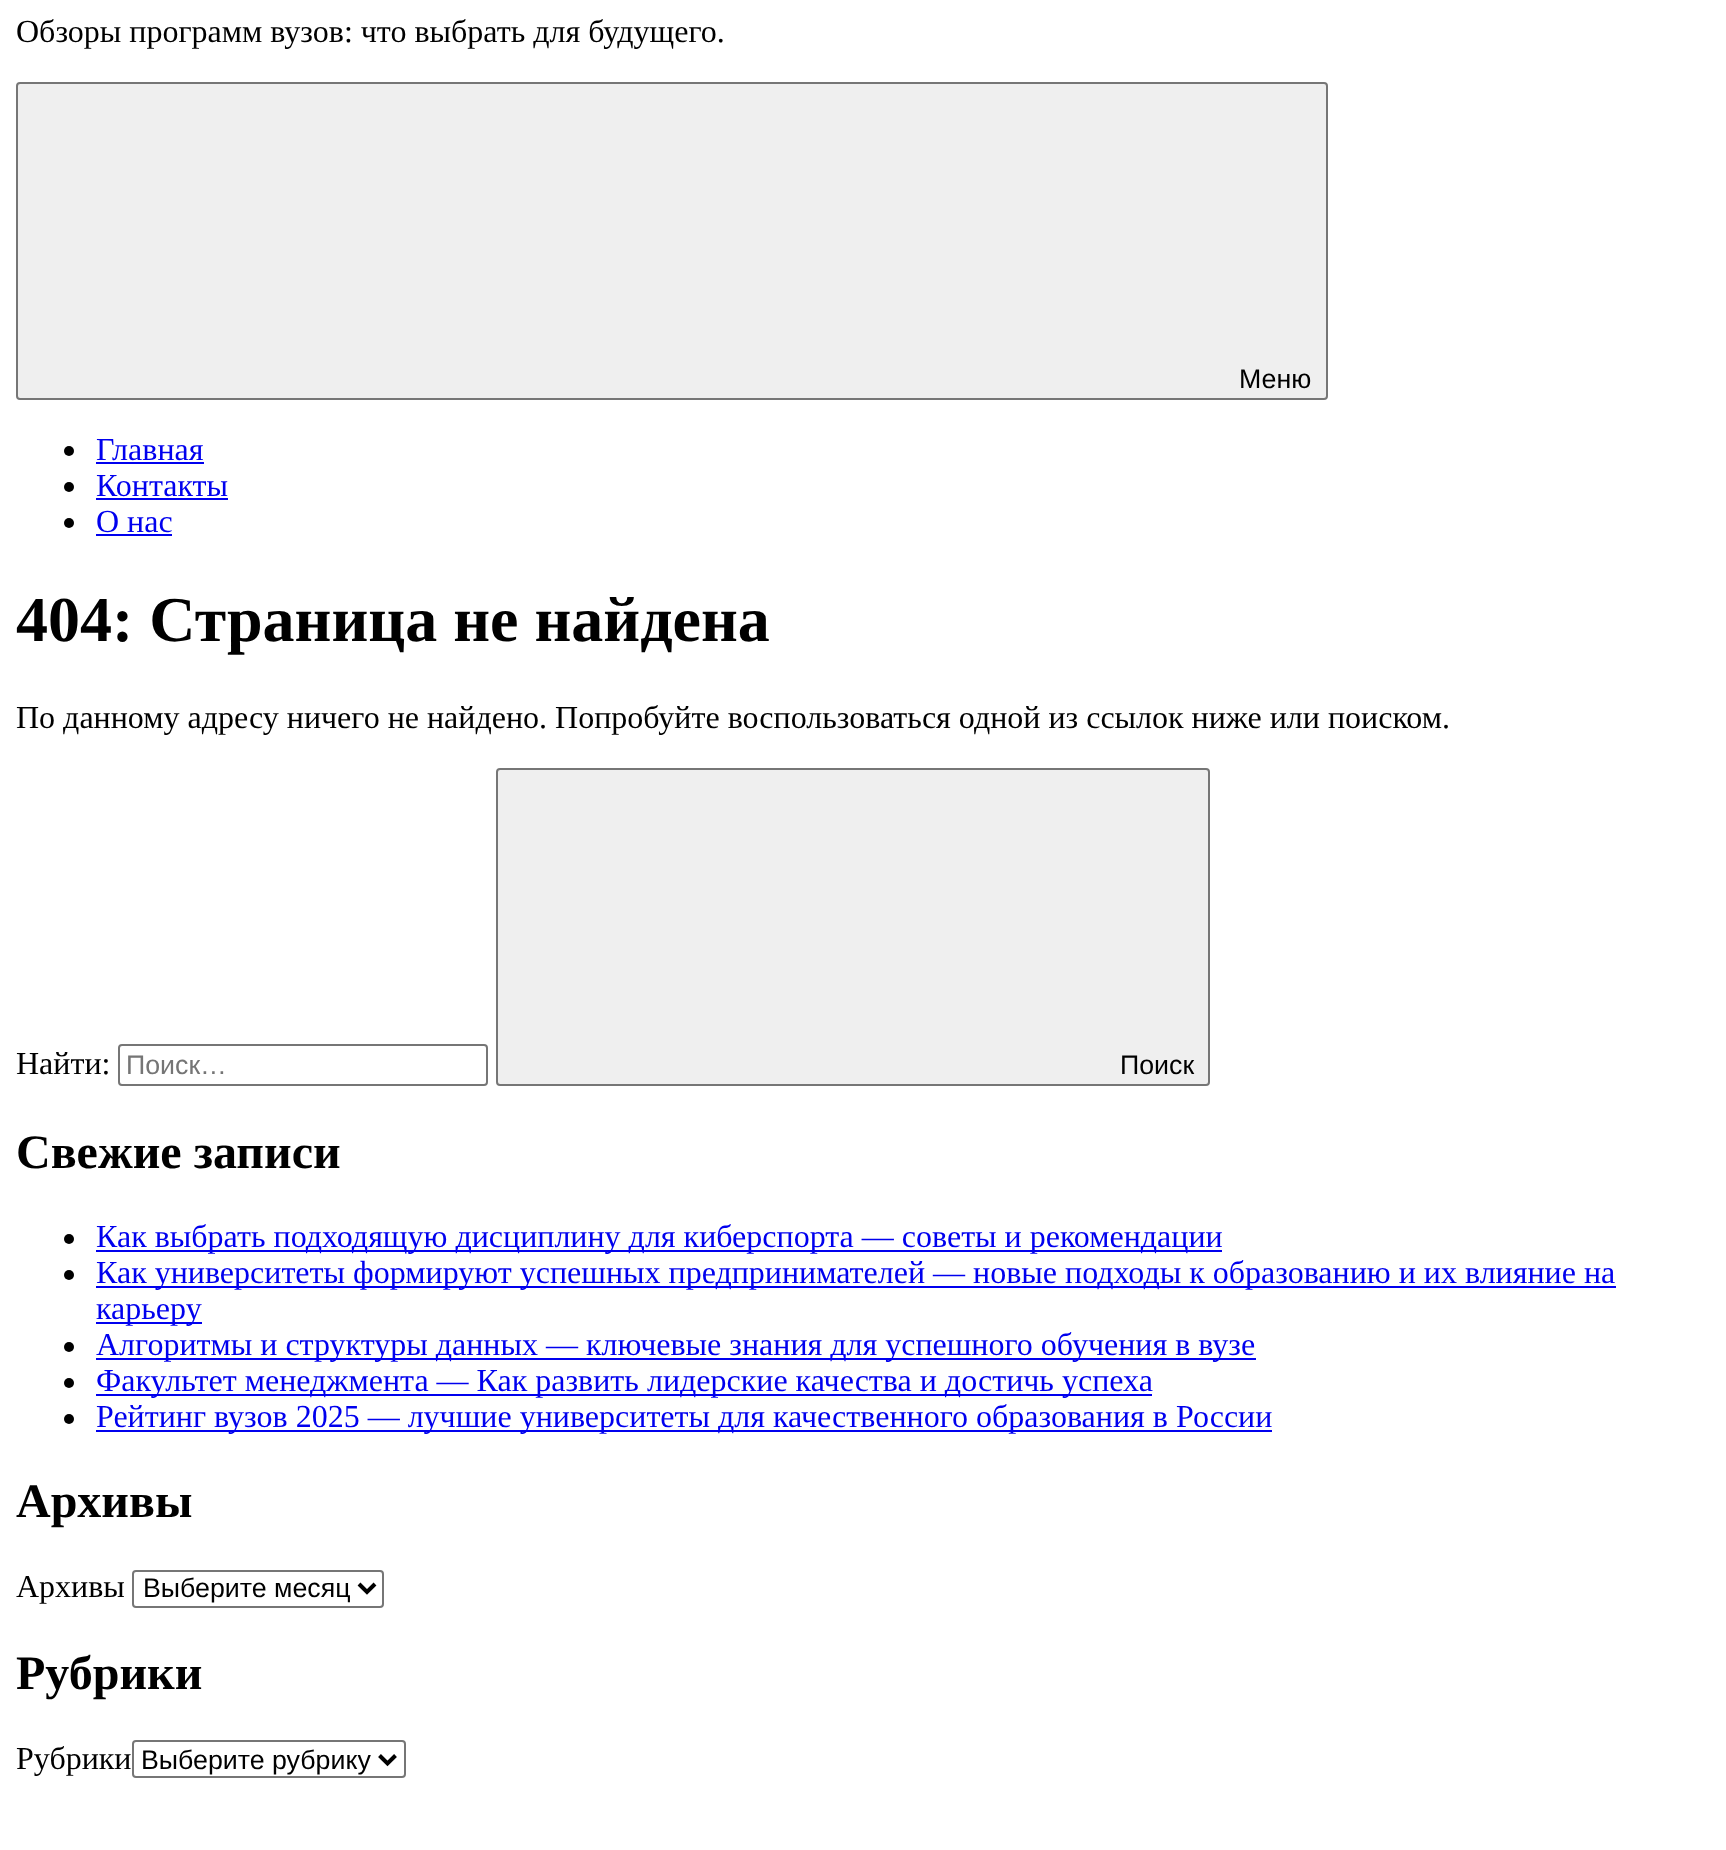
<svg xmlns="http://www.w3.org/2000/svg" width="1726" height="1850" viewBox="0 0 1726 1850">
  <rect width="100%" height="100%" fill="#fff"/>
  <rect x="17" y="83" width="1310" height="316" rx="3" fill="#efefef" stroke="#767676" stroke-width="2"/>
  <circle cx="69" cy="451" r="5" fill="#000"/>
  <path d="M96 462h108v2H96z" fill="#00e"/>
  <circle cx="69" cy="487" r="5" fill="#000"/>
  <path d="M96 498h132v2H96z" fill="#00e"/>
  <circle cx="69" cy="523" r="5" fill="#000"/>
  <path d="M96 534h76v2H96z" fill="#00e"/>
  <rect x="119" y="1045" width="368" height="40" rx="3" fill="none" stroke="#767676" stroke-width="2"/>
  <rect x="497" y="769" width="712" height="316" rx="3" fill="#efefef" stroke="#767676" stroke-width="2"/>
  <circle cx="69" cy="1239" r="5" fill="#000"/>
  <path d="M96 1250h1126v2H96z" fill="#00e"/>
  <circle cx="69" cy="1275" r="5" fill="#000"/>
  <path d="M96 1286h1520v2H96z" fill="#00e"/>
  <path d="M96 1322h106v2H96z" fill="#00e"/>
  <circle cx="69" cy="1347" r="5" fill="#000"/>
  <path d="M96 1358h1160v2H96z" fill="#00e"/>
  <circle cx="69" cy="1383" r="5" fill="#000"/>
  <path d="M96 1394h1056v2H96z" fill="#00e"/>
  <circle cx="69" cy="1419" r="5" fill="#000"/>
  <path d="M96 1430h1176v2H96z" fill="#00e"/>
  <rect x="133" y="1571" width="250" height="36" rx="3" fill="none" stroke="#767676" stroke-width="2"/>
  <path d="M359 1584L367 1592L375 1584" fill="none" stroke="#000" stroke-width="4"/>
  <rect x="133" y="1741" width="272" height="36" rx="3" fill="none" stroke="#767676" stroke-width="2"/>
  <path d="M379.5 1755.5L387.5 1763.5L395.5 1755.5" fill="none" stroke="#000" stroke-width="4"/>
  <text x="16" y="42" font-family="Liberation Serif" font-size="32" fill="#000">Обзоры программ вузов: что выбрать для будущего.</text>
  <text x="1239" y="388" font-family="Liberation Sans" font-size="26.75" fill="#000">Меню</text>
  <g font-family="Liberation Serif" font-size="32" fill="#00e">
    <text x="96" y="460">Главная</text>
    <text x="96" y="496">Контакты</text>
    <text x="96" y="532">О нас</text>
  </g>
  <text x="16" y="641" font-family="Liberation Serif" font-size="64" font-weight="bold" fill="#000">404: Страница не найдена</text>
  <g font-family="Liberation Serif" font-size="32" fill="#000">
    <text x="16" y="728">По данному адресу ничего не найдено. Попробуйте воспользоваться одной из ссылок ниже или поиском.</text>
    <text x="16" y="1074">Найти:</text>
  </g>
  <text x="126" y="1074" font-family="Liberation Sans" font-size="26.75" fill="#757575">Поиск…</text>
  <text x="1120" y="1074" font-family="Liberation Sans" font-size="26.75" fill="#000">Поиск</text>
  <text x="16" y="1168" font-family="Liberation Serif" font-size="48" font-weight="bold" fill="#000">Свежие записи</text>
  <g font-family="Liberation Serif" font-size="32" fill="#00e">
    <text x="96" y="1247">Как выбрать подходящую дисциплину для киберспорта — советы и рекомендации</text>
    <text x="96" y="1283">Как университеты формируют успешных предпринимателей — новые подходы к образованию и их влияние на</text>
    <text x="96" y="1319">карьеру</text>
    <text x="96" y="1355">Алгоритмы и структуры данных — ключевые знания для успешного обучения в вузе</text>
    <text x="96" y="1391">Факультет менеджмента — Как развить лидерские качества и достичь успеха</text>
    <text x="96" y="1427">Рейтинг вузов 2025 — лучшие университеты для качественного образования в России</text>
  </g>
  <text x="16" y="1517" font-family="Liberation Serif" font-size="48" font-weight="bold" fill="#000">Архивы</text>
  <text x="16" y="1597" font-family="Liberation Serif" font-size="32" fill="#000">Архивы</text>
  <text x="143" y="1597" font-family="Liberation Sans" font-size="26.75" fill="#000">Выберите месяц</text>
  <text x="16" y="1689" font-family="Liberation Serif" font-size="48" font-weight="bold" fill="#000">Рубрики</text>
  <text x="16" y="1769" font-family="Liberation Serif" font-size="32" fill="#000">Рубрики</text>
  <text x="141" y="1769" font-family="Liberation Sans" font-size="26.75" fill="#000">Выберите рубрику</text>
</svg>
